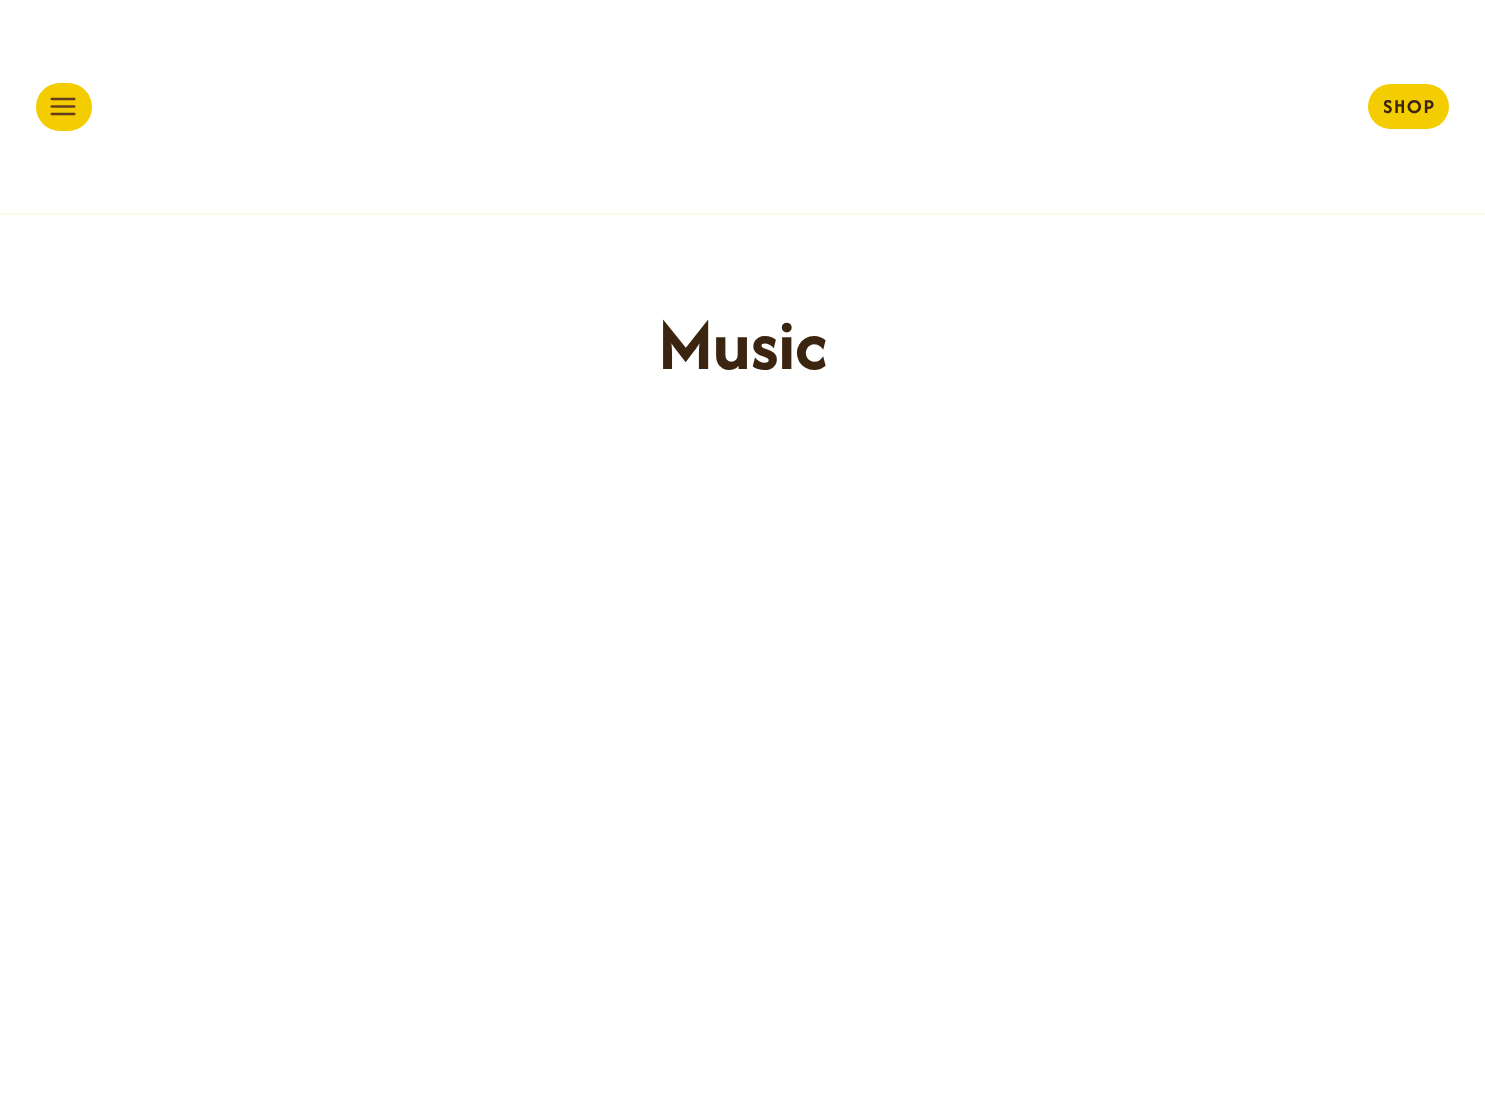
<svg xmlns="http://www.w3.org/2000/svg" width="1485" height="1109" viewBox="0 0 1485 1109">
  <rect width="100%" height="100%" fill="#fff"/>
  <path d="M0 213h1485v2H0z" fill="#fdfae5"/>
  <rect x="36" y="83" width="56" height="48" rx="24" fill="#f3cd00"/>
  <image x="50" y="97" width="26" height="19" href="img/1.png"/>
  <rect x="1368" y="84" width="81" height="45" rx="22.5" fill="#f3cd00"/>
  <text x="1383" y="113" font-family="Afacad" font-size="20.5" font-weight="bold" letter-spacing="1.5" fill="#3b2510">SHOP</text>
  <text x="658" y="369" font-family="Afacad" font-size="76.5" font-weight="bold" fill="#3b2510">Music</text>
</svg>
